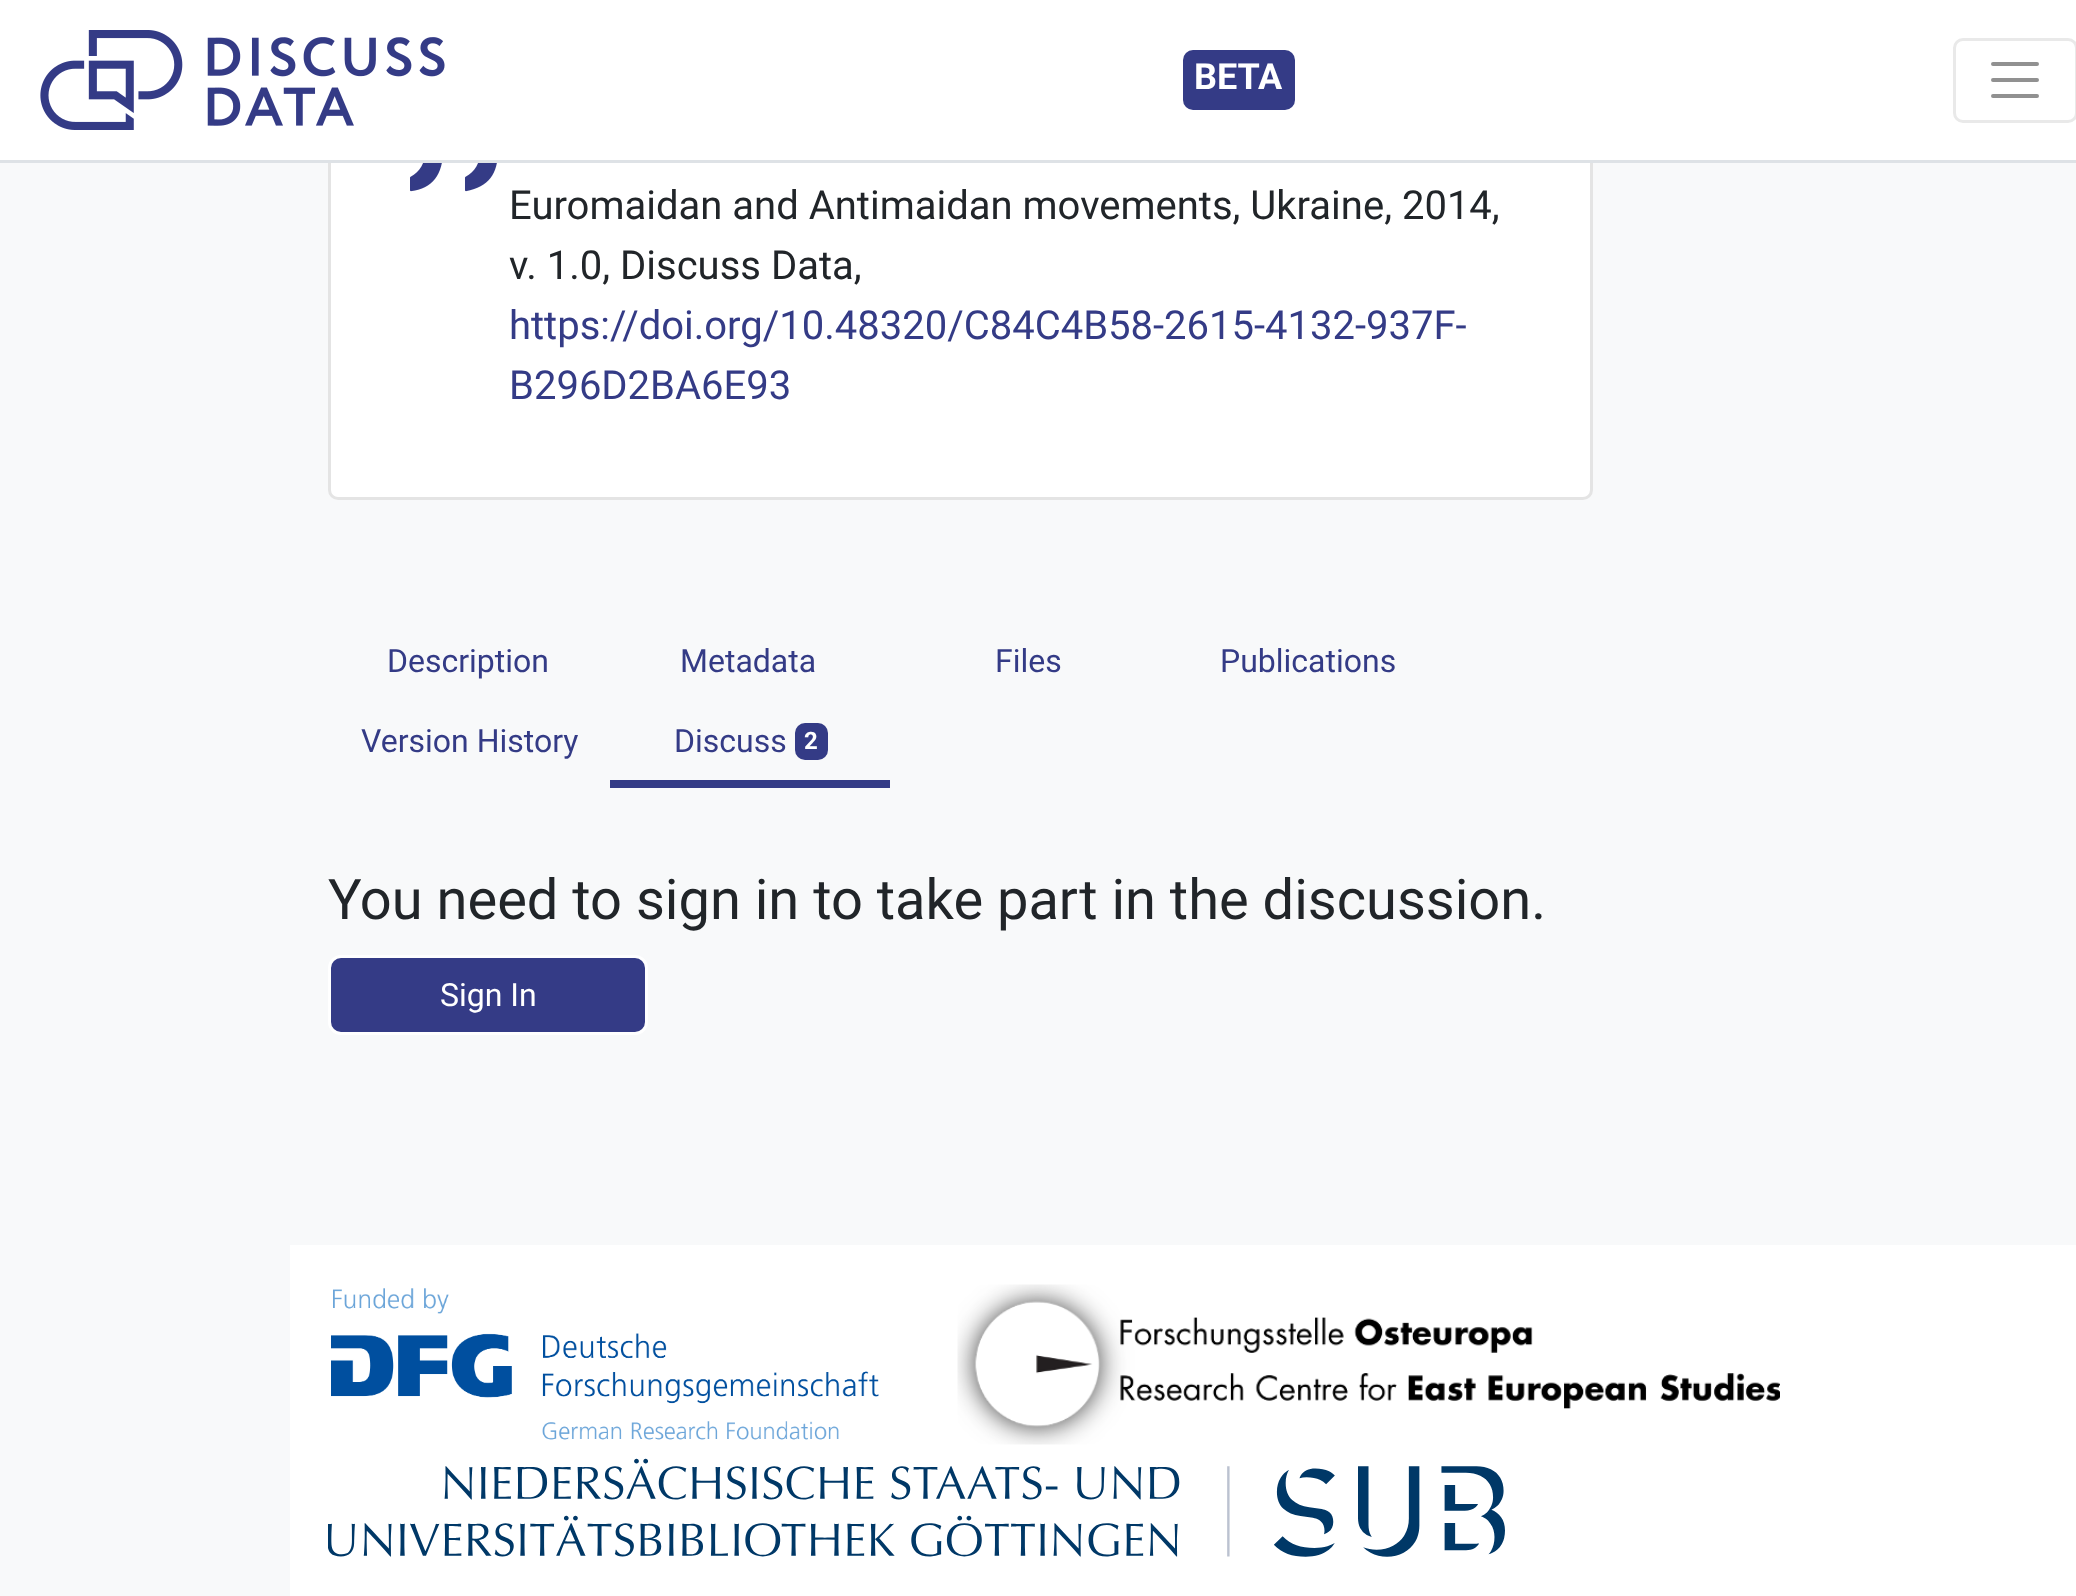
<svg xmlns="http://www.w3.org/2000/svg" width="2076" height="1596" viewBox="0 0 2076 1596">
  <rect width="100%" height="100%" fill="#f8f9fa"/>
  <rect x="328" y="35" width="1265" height="465" rx="10" fill="#fff"/>
  <rect x="329.5" y="36.5" width="1262" height="462" rx="8.5" fill="none" stroke="#2222221f" stroke-width="3"/>
  <path d="M0 0h2076v160H0z" fill="#fff"/>
  <path d="M0 160h2076v3H0z" fill="#dee2e6"/>
  <image x="40" y="30" width="405" height="100" href="img/1.png"/>
  <rect x="1183" y="50" width="112" height="60" rx="10" fill="#343b86"/>
  <rect x="1954.5" y="39.5" width="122" height="82" rx="8.5" fill="none" stroke="#e9e9e9" stroke-width="3"/>
  <path d="M1993 64H2037M1993 80H2037M1993 96H2037" fill="none" stroke="#919191" stroke-width="4" stroke-linecap="round"/>
  <image x="410" y="163" width="87" height="29" href="img/2.png"/>
  <path d="M610 780h280v8H610z" fill="#343b86"/>
  <rect x="795" y="723" width="33" height="37" rx="10" fill="#343b86"/>
  <rect x="329.5" y="956.5" width="317" height="77" rx="11.5" fill="#343b86" stroke="#fff" stroke-width="3"/>
  <path d="M290 1245h1786v351H290z" fill="#fff"/>
  <image x="331" y="1288" width="548" height="152" href="img/3.png"/>
  <image x="957" y="1284" width="823" height="161" href="img/4.png"/>
  <image x="328" y="1458" width="1177" height="99" href="img/5.png"/>
  <text x="1194" y="89" font-family="Roboto" font-size="36" font-weight="bold" fill="#fff">BETA</text>
  <g font-family="Roboto" font-size="40" fill="#212529">
    <text x="509" y="219">Euromaidan and Antimaidan movements, Ukraine, 2014,</text>
    <text x="509" y="279">v. 1.0, Discuss Data,</text>
  </g>
  <g font-family="Roboto" font-size="40" fill="#343b86">
    <text x="509" y="339">https://doi.org/10.48320/C84C4B58-2615-4132-937F-</text>
    <text x="509" y="399">B296D2BA6E93</text>
  </g>
  <g font-family="Roboto" font-size="32" fill="#343b86">
    <text x="387" y="672">Description</text>
    <text x="680" y="672">Metadata</text>
    <text x="995" y="672">Files</text>
    <text x="1220" y="672">Publications</text>
    <text x="361" y="752">Version History</text>
    <text x="674" y="752">Discuss</text>
  </g>
  <text x="804" y="749" font-family="Roboto" font-size="24" font-weight="bold" fill="#fff">2</text>
  <text x="328" y="919" font-family="Roboto" font-size="56" fill="#212529">You need to sign in to take part in the discussion.</text>
  <text x="440" y="1006" font-family="Roboto" font-size="32" fill="#fff">Sign In</text>
</svg>
